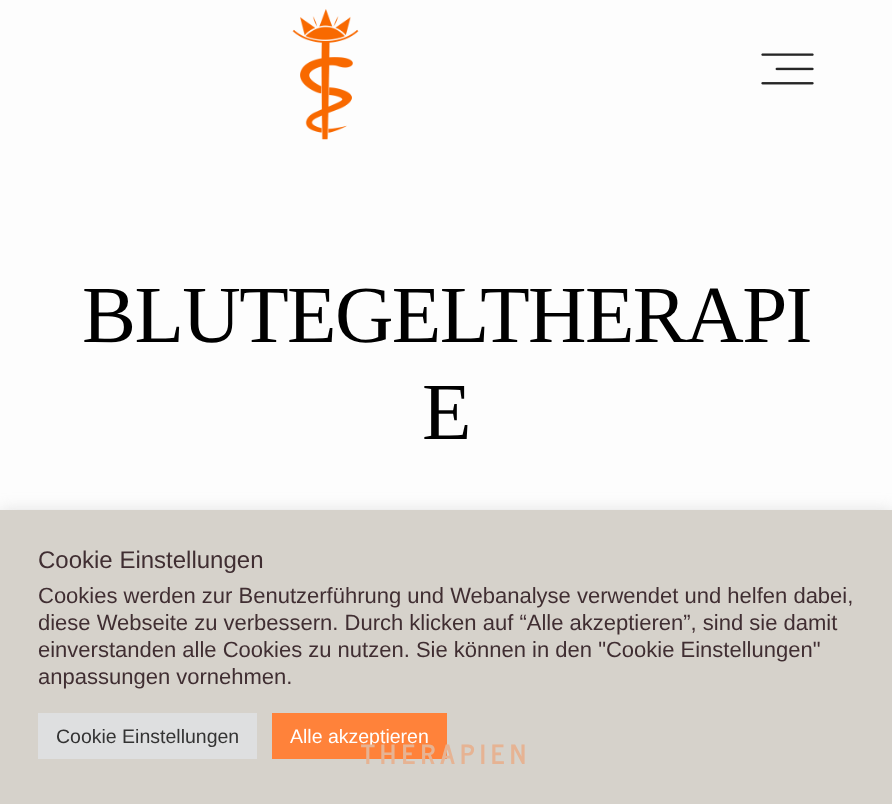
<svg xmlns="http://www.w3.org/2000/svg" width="892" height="804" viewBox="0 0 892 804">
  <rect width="100%" height="100%" fill="#fdfdfd"/>
  <image x="292" y="9" width="67" height="131" href="img/1.png"/>
  <image x="761" y="53" width="53" height="32" href="img/2.png"/>
  <path d="M0 509h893v294H0z" fill="#acabab4d" filter="blur(7.5px)"/>
  <path d="M0 510h892v294H0z" fill="#d6d2cb"/>
  <path d="M38 713h219v46H38z" fill="#dedfe0"/>
  <path d="M272 713h175v46H272z" fill="#ff823a"/>
  <g font-family="Liberation Serif" font-size="81" letter-spacing="-1.6" fill="#000">
    <text x="82" y="342">BLUTEGELTHERAPI</text>
    <text x="422" y="439">E</text>
  </g>
  <text x="38" y="568" font-family="Liberation Sans" font-size="24" fill="#402e32">Cookie Einstellungen</text>
  <g font-family="Liberation Sans" font-size="22" fill="#402e32">
    <text x="38" y="603">Cookies werden zur Benutzerführung und Webanalyse verwendet und helfen dabei,</text>
    <text x="38" y="630">diese Webseite zu verbessern. Durch klicken auf “Alle akzeptieren”, sind sie damit</text>
    <text x="38" y="657">einverstanden alle Cookies zu nutzen. Sie können in den "Cookie Einstellungen"</text>
    <text x="38" y="684">anpassungen vornehmen.</text>
  </g>
  <text x="56" y="743" font-family="Liberation Sans" font-size="19.5" fill="#333">Cookie Einstellungen</text>
  <text x="290" y="743" font-family="Liberation Sans" font-size="19.5" fill="#fff">Alle akzeptieren</text>
  <text x="361" y="764" font-family="News Cycle" font-size="26.25" font-weight="bold" letter-spacing="5.25" fill="#e6b393">THERAPIEN</text>
</svg>
